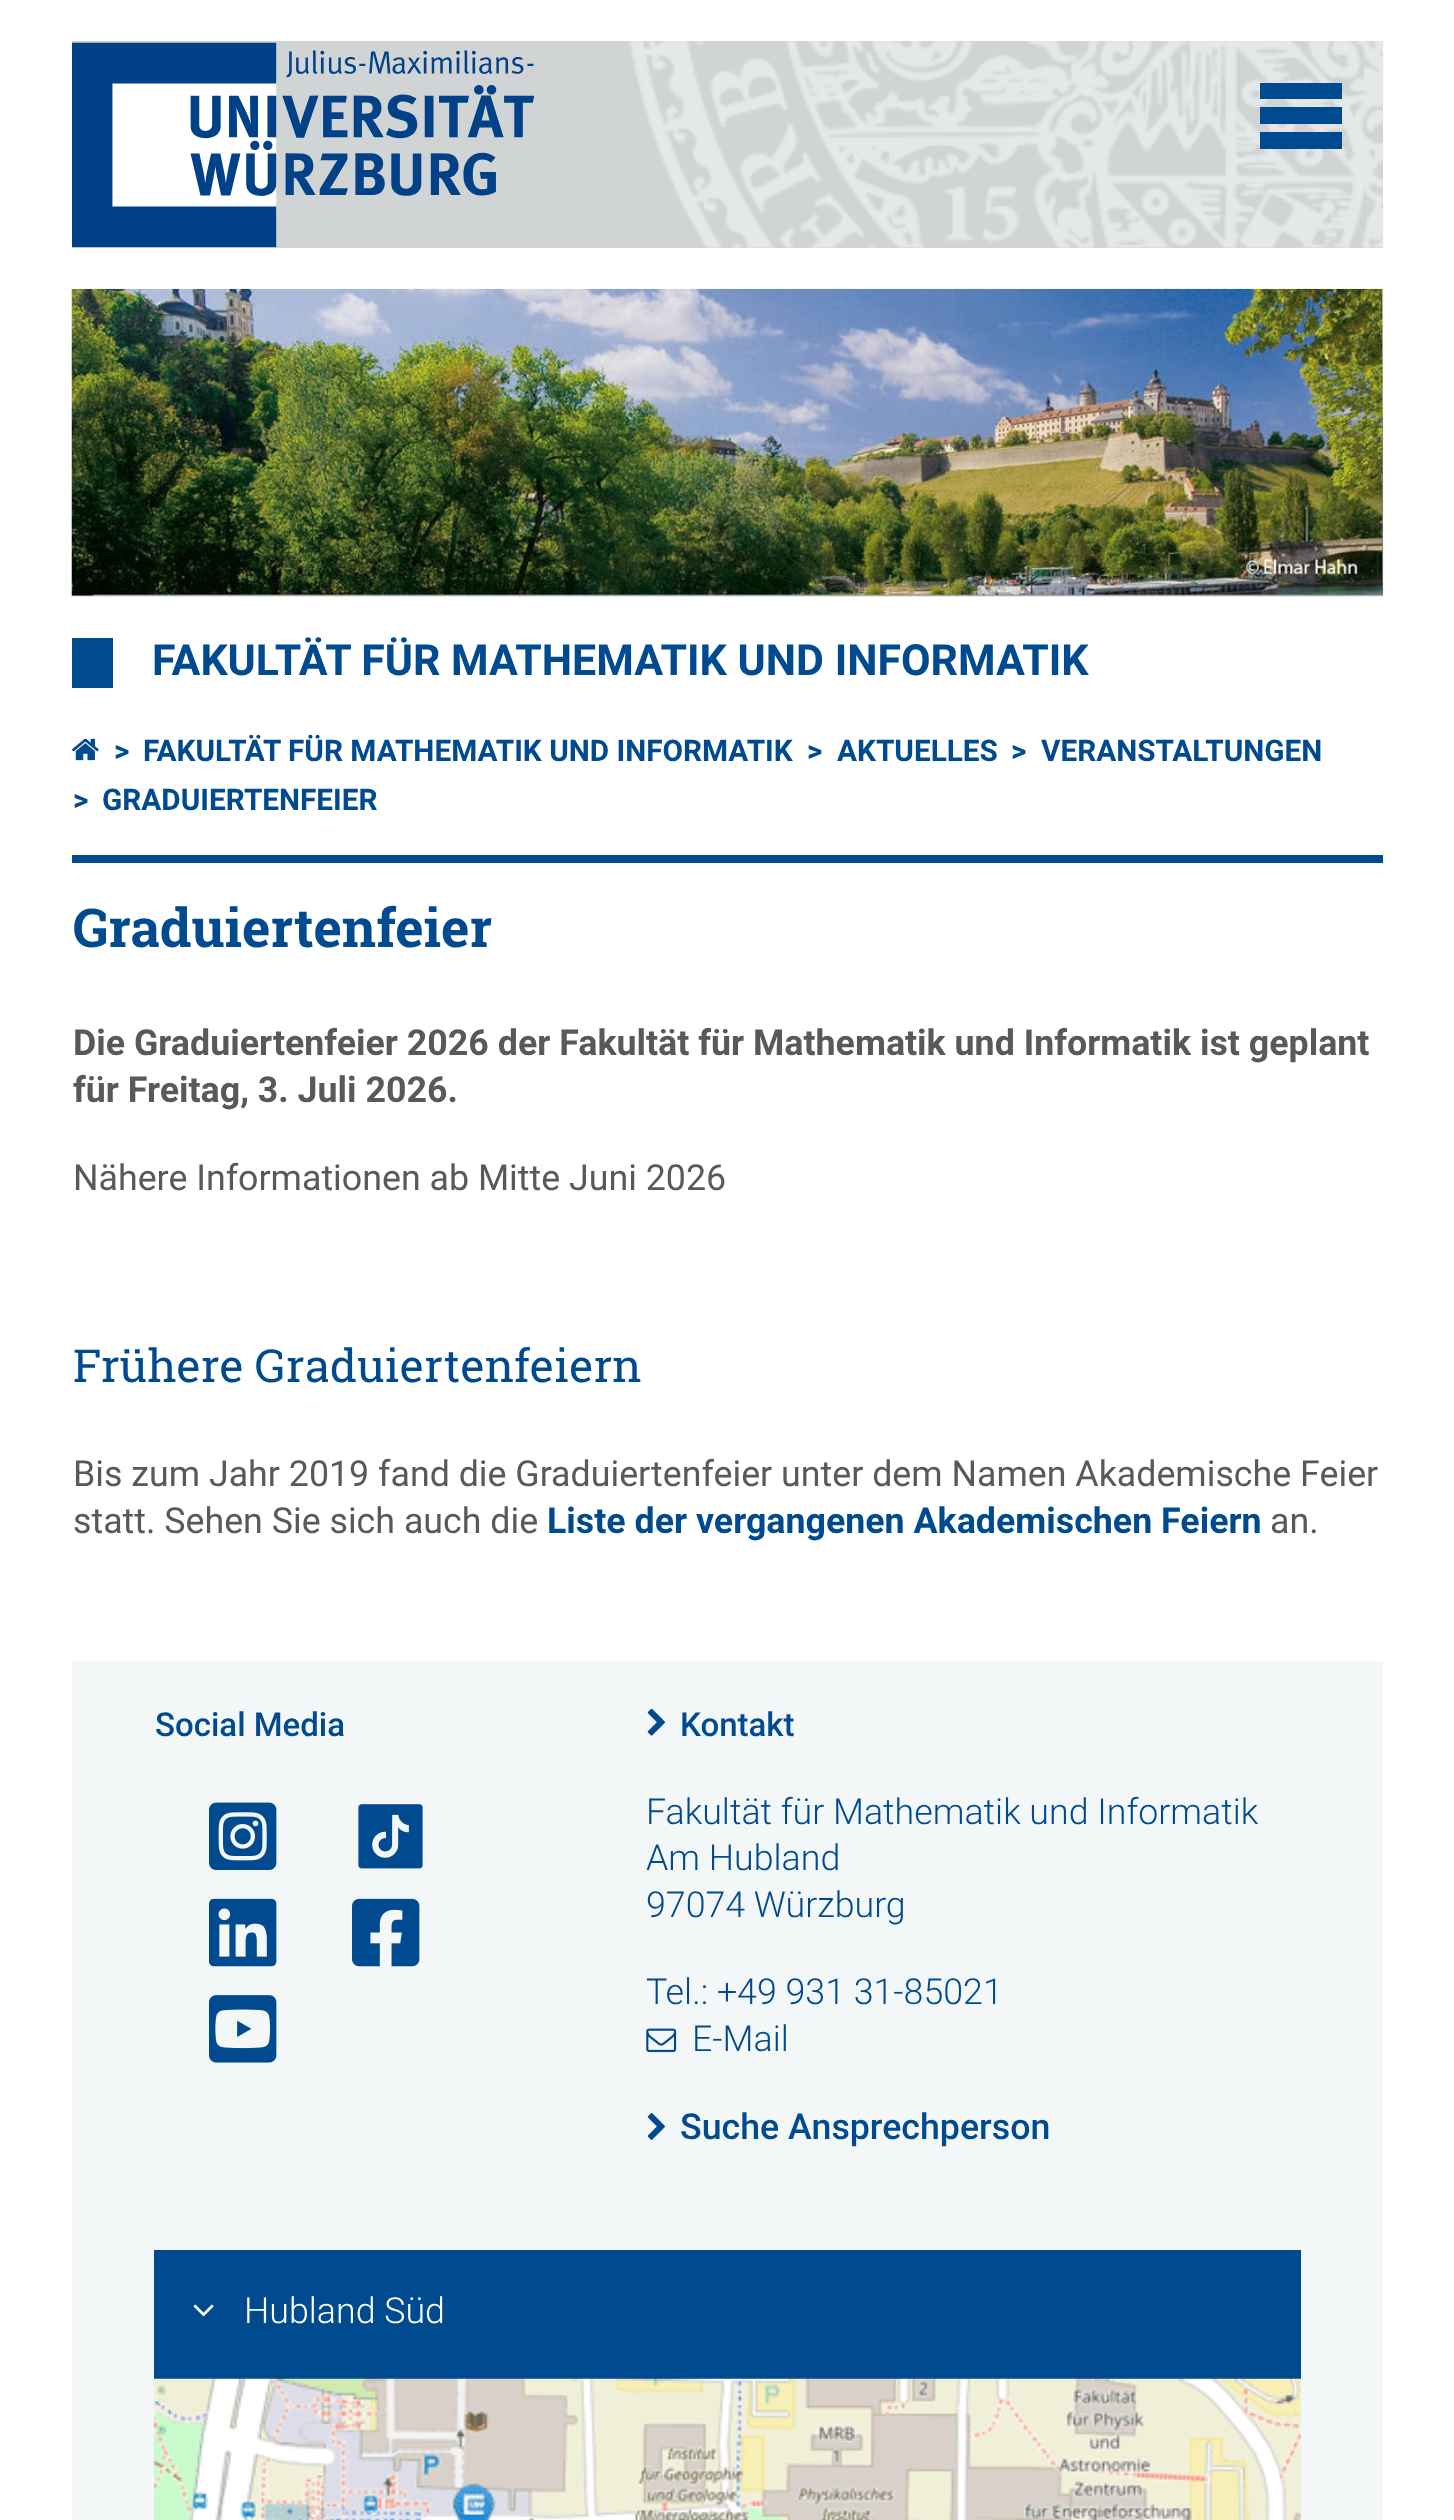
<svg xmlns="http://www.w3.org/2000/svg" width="1454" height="2520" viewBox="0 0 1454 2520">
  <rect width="100%" height="100%" fill="#fff"/>
  <path d="M72 41h1311v207H72z" fill="#d1d4d4"/>
  <image x="629" y="41" width="755" height="207" href="img/1.png"/>
  <image x="72" y="42" width="463" height="206" href="img/2.png"/>
  <path d="M1260 83h82v16H1260z" fill="#004a8f"/>
  <path d="M1260 107h82v17H1260z" fill="#004a8f"/>
  <path d="M1260 132h82v17H1260z" fill="#004a8f"/>
  <path d="M72 596h1311v1H72z" fill="#d5dad5"/>
  <image x="71" y="288" width="1313" height="309" href="img/3.png"/>
  <path d="M72 638h41v50H72z" fill="#004a8f"/>
  <path d="M72 855h1311v8H72z" fill="#004a8f"/>
  <image x="72" y="738" width="27" height="23" href="img/4.png"/>
  <path d="M72 1661h1311v859H72z" fill="#f4f7f7"/>
  <image x="209" y="1802" width="68" height="68" href="img/5.png"/>
  <image x="358" y="1804" width="65" height="65" href="img/6.png"/>
  <image x="209" y="1898" width="68" height="69" href="img/7.png"/>
  <image x="352" y="1898" width="68" height="69" href="img/8.png"/>
  <image x="209" y="1995" width="68" height="68" href="img/9.png"/>
  <image x="647" y="1708" width="18" height="28" href="img/10.png"/>
  <image x="646" y="2028" width="31" height="25" href="img/11.png"/>
  <image x="647" y="2113" width="18" height="27" href="img/12.png"/>
  <path d="M154 2250h1147v129H154z" fill="#004a8f"/>
  <image x="193" y="2304" width="21" height="13" href="img/13.png"/>
  <image x="154" y="2378" width="1147" height="142" href="img/14.png"/>
  <text x="152" y="675" font-family="Roboto" font-size="42.9" font-weight="bold" fill="#004a8f">FAKULTÄT FÜR MATHEMATIK UND INFORMATIK</text>
  <g font-family="Roboto" font-size="29.75" font-weight="bold" fill="#004a8f">
    <text x="114" y="761">&gt;</text>
    <text x="143" y="761">FAKULTÄT FÜR MATHEMATIK UND INFORMATIK</text>
    <text x="807" y="761">&gt;</text>
    <text x="837" y="761">AKTUELLES</text>
    <text x="1011" y="761">&gt;</text>
    <text x="1041" y="761">VERANSTALTUNGEN</text>
    <text x="73" y="810">&gt;</text>
    <text x="102" y="810">GRADUIERTENFEIER</text>
  </g>
  <text x="73" y="947" font-family="Roboto Slab" font-size="53.5" font-weight="bold" fill="#004a8f">Graduiertenfeier</text>
  <g font-family="Roboto" font-size="35.75" font-weight="bold" fill="#595959">
    <text x="73" y="1055">Die Graduiertenfeier 2026 der Fakultät für Mathematik und Informatik ist geplant</text>
    <text x="73" y="1102">für Freitag, 3. Juli 2026.</text>
  </g>
  <text x="73" y="1190" font-family="Roboto" font-size="35.75" fill="#595959">Nähere Informationen ab Mitte Juni 2026</text>
  <text x="73" y="1382" font-family="Roboto Slab" font-size="45.5" fill="#004a8f">Frühere Graduiertenfeiern</text>
  <g font-family="Roboto" font-size="35.75" fill="#595959">
    <text x="73" y="1486">Bis zum Jahr 2019 fand die Graduiertenfeier unter dem Namen Akademische Feier</text>
    <text x="73" y="1533">statt. Sehen Sie sich auch die</text>
  </g>
  <text x="547" y="1533" font-family="Roboto" font-size="35.75" font-weight="bold" fill="#004a8f">Liste der vergangenen Akademischen Feiern</text>
  <text x="1270" y="1533" font-family="Roboto" font-size="35.75" fill="#595959">an.</text>
  <g font-family="Roboto" font-size="33" font-weight="500" fill="#004a8f">
    <text x="155" y="1736">Social Media</text>
    <text x="680" y="1736">Kontakt</text>
  </g>
  <g font-family="Roboto" font-size="35.75" font-weight="300" fill="#004a8f">
    <text x="646" y="1824">Fakultät für Mathematik und Informatik</text>
    <text x="646" y="1870">Am Hubland</text>
    <text x="646" y="1917">97074 Würzburg</text>
    <text x="646" y="2004">Tel.: +49 931 31-85021</text>
    <text x="692" y="2051">E-Mail</text>
  </g>
  <text x="680" y="2139" font-family="Roboto" font-size="35.75" font-weight="500" fill="#004a8f">Suche Ansprechperson</text>
  <text x="244" y="2323" font-family="Roboto" font-size="35.75" font-weight="300" fill="#fff">Hubland Süd</text>
</svg>
